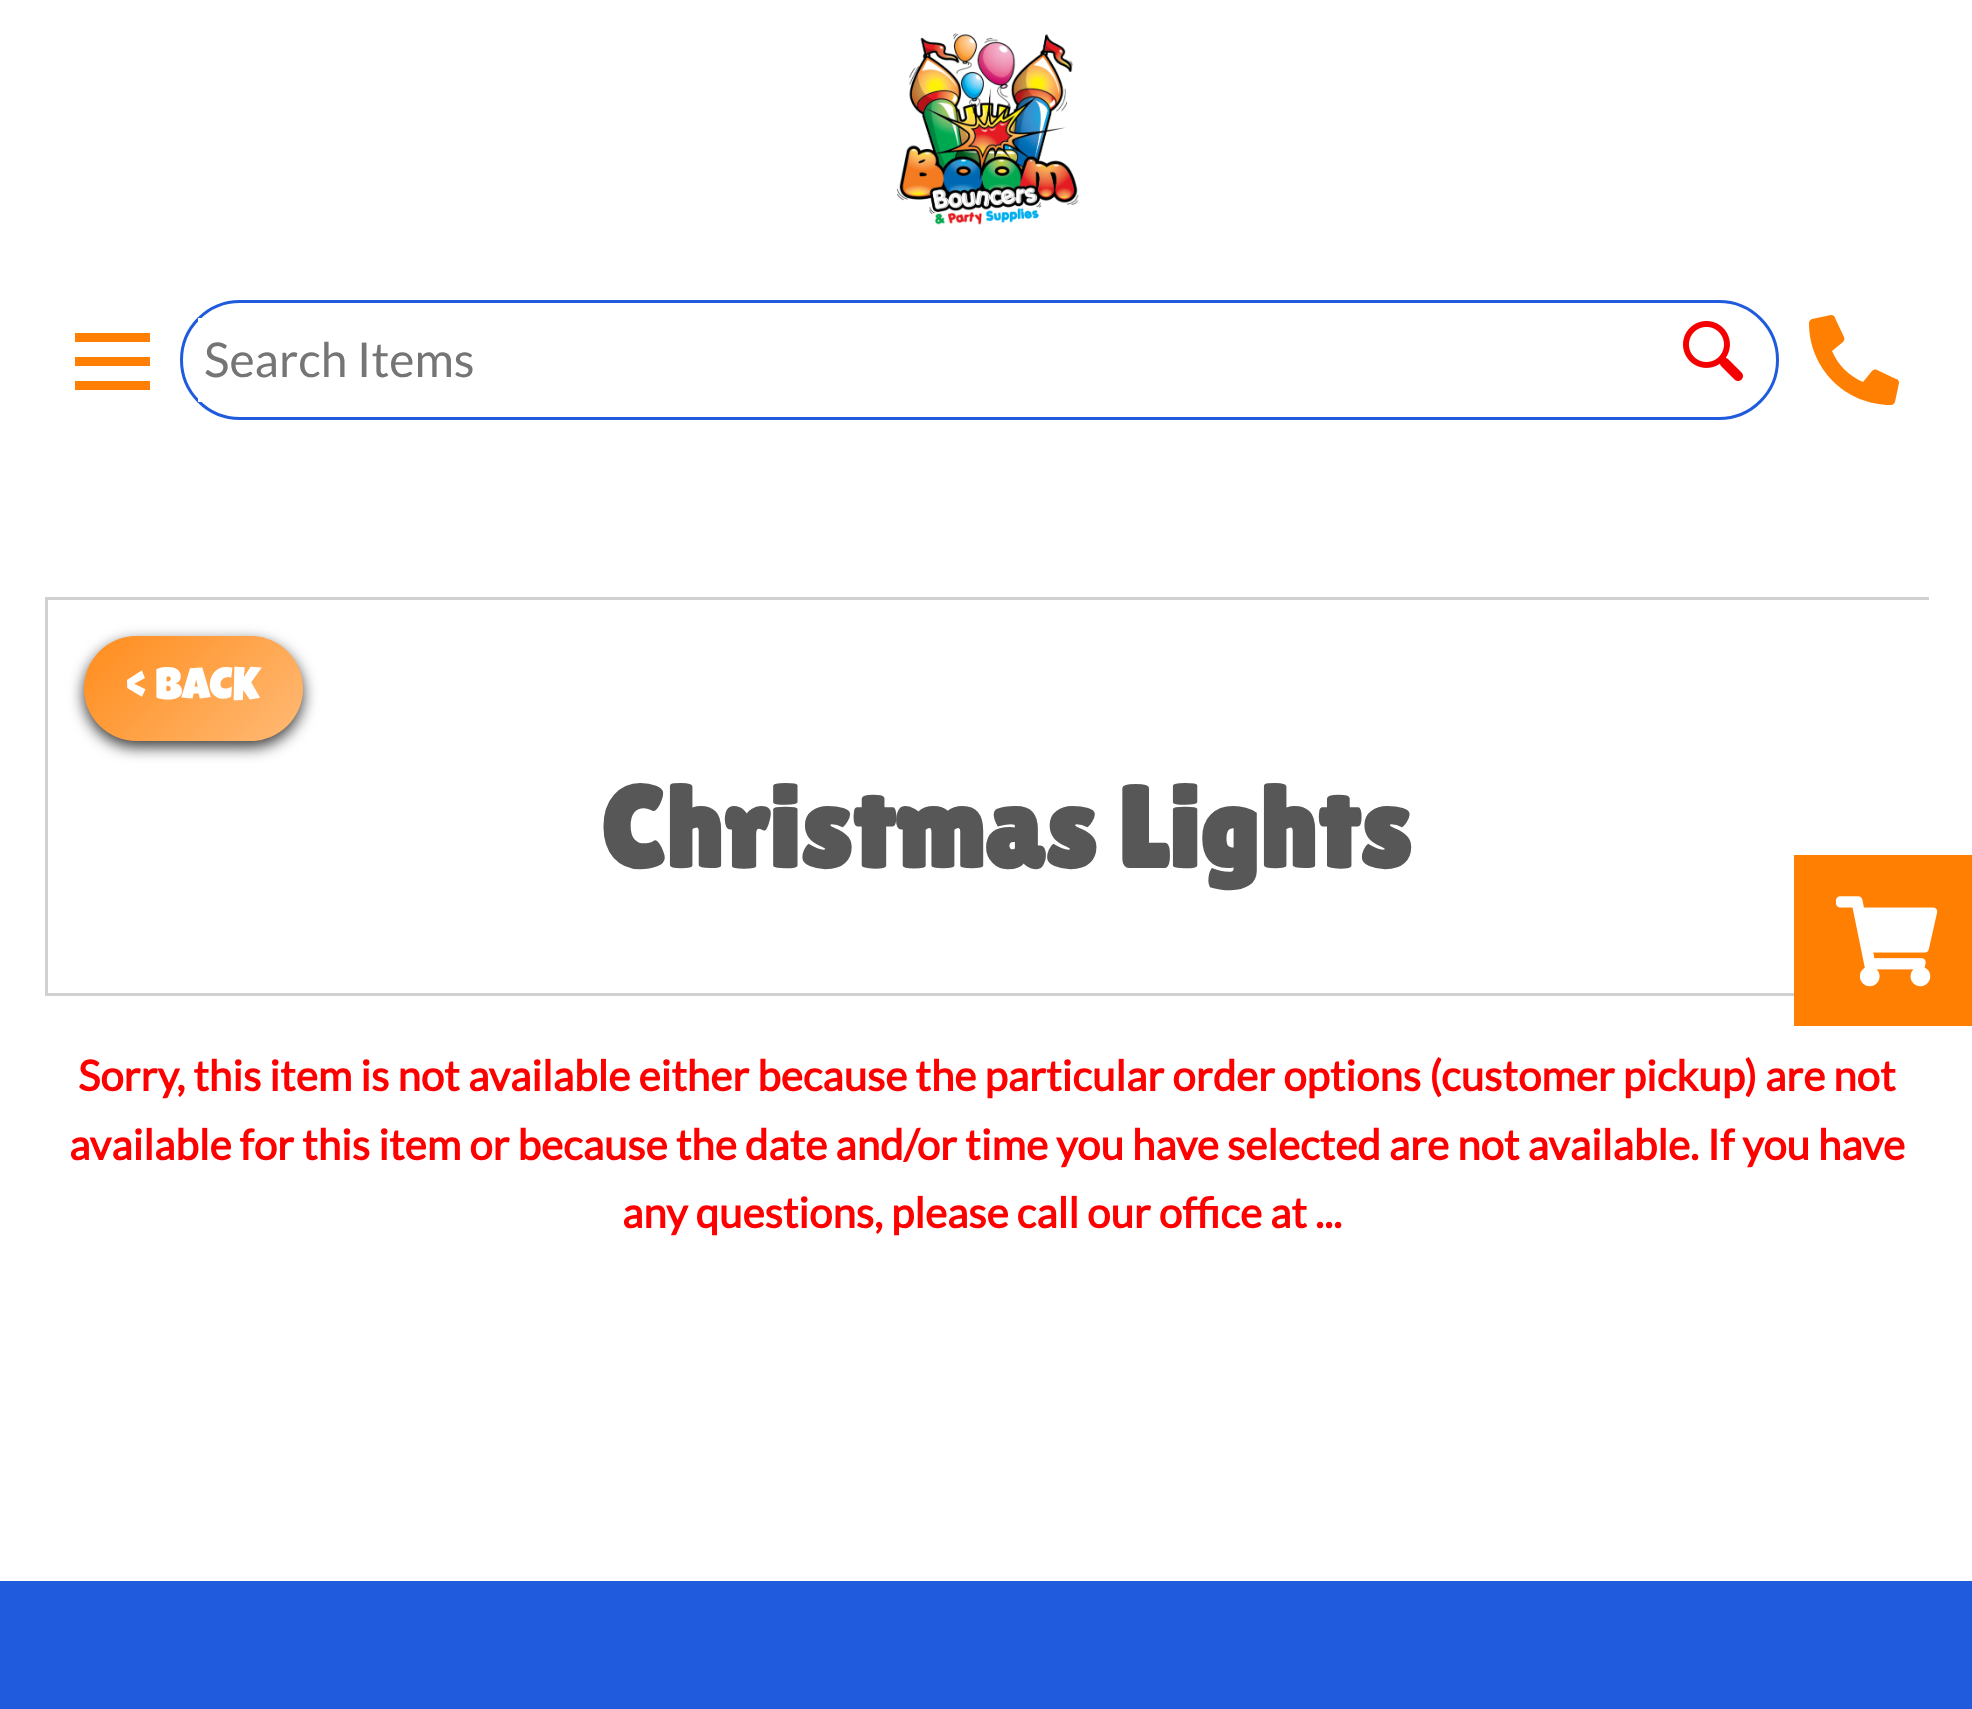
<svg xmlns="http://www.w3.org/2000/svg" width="1972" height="1709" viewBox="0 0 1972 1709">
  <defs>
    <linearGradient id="g1" gradientUnits="userSpaceOnUse" x1="141" y1="579" x2="465" y2="903"><stop offset="0" stop-color="#fff" stop-opacity="0"/><stop offset="0.5" stop-color="#fff" stop-opacity="0.4"/><stop offset="1" stop-color="#fff" stop-opacity="0"/></linearGradient>
  </defs>
  <rect width="100%" height="100%" fill="#fff"/>
  <image x="896" y="33" width="183" height="192" href="img/1.png"/>
  <path d="M75 333h75v9H75z" fill="#ff7f02"/>
  <path d="M75 357h75v9H75z" fill="#ff7f02"/>
  <path d="M75 381h75v9H75z" fill="#ff7f02"/>
  <rect x="181.5" y="301.5" width="1596" height="117" rx="58.5" fill="none" stroke="#205bdd" stroke-width="3"/>
  <path d="M198 318h4v84H198z" fill="#fff"/>
  <image x="1683" y="321" width="60" height="60" href="img/2.png"/>
  <path d="M1896 379L1877 370C1875 369 1873 370 1872 371L1863 382C1849 376 1838 365 1832 351L1843 342C1844 341 1845 339 1844 337L1835 318C1835 316 1833 315 1831 315L1812 319C1810 320 1809 321 1809 323C1809 369 1846 405 1891 405C1893 405 1894 404 1895 402L1899 383C1899 381 1898 379 1896 379Z" fill="#ff7f02"/>
  <path d="M45 597h1884v3H45z" fill="#d1d1d1"/>
  <path d="M45 993h1749v3H45z" fill="#d1d1d1"/>
  <path d="M45 597h3v399H45z" fill="#d1d1d1"/>
  <rect x="84" y="642" width="219" height="105" rx="52.5" fill="#383838" filter="blur(7.5px)"/>
  <rect x="84" y="636" width="219" height="105" rx="52.5" fill="#ff8c1b"/>
  <rect x="84" y="636" width="219" height="105" rx="52.5" fill="url(#g1)"/>
  <path d="M1794 855h178v171H1794z" fill="#ff7f02"/>
  <image x="1836" y="896" width="102" height="91" href="img/3.png"/>
  <path d="M0 1581h1972v128H0z" fill="#205bdd"/>
  <text x="204" y="377" font-family="Lato" font-size="48" fill="#757575">Search Items</text>
  <text x="126" y="699" font-family="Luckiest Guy" font-size="45" fill="#fff">&lt; BACK</text>
  <text x="600" y="868" font-family="Lilita One" font-size="115.25" font-weight="bold" fill="#575757">Christmas Lights</text>
  <g font-family="Lato" font-size="42" font-weight="bold" fill="#f00">
    <text x="78" y="1091">Sorry, this item is not available either because the particular order options (customer pickup) are not</text>
    <text x="69" y="1160">available for this item or because the date and/or time you have selected are not available. If you have</text>
    <text x="622" y="1228">any questions, please call our office at ...</text>
  </g>
</svg>
